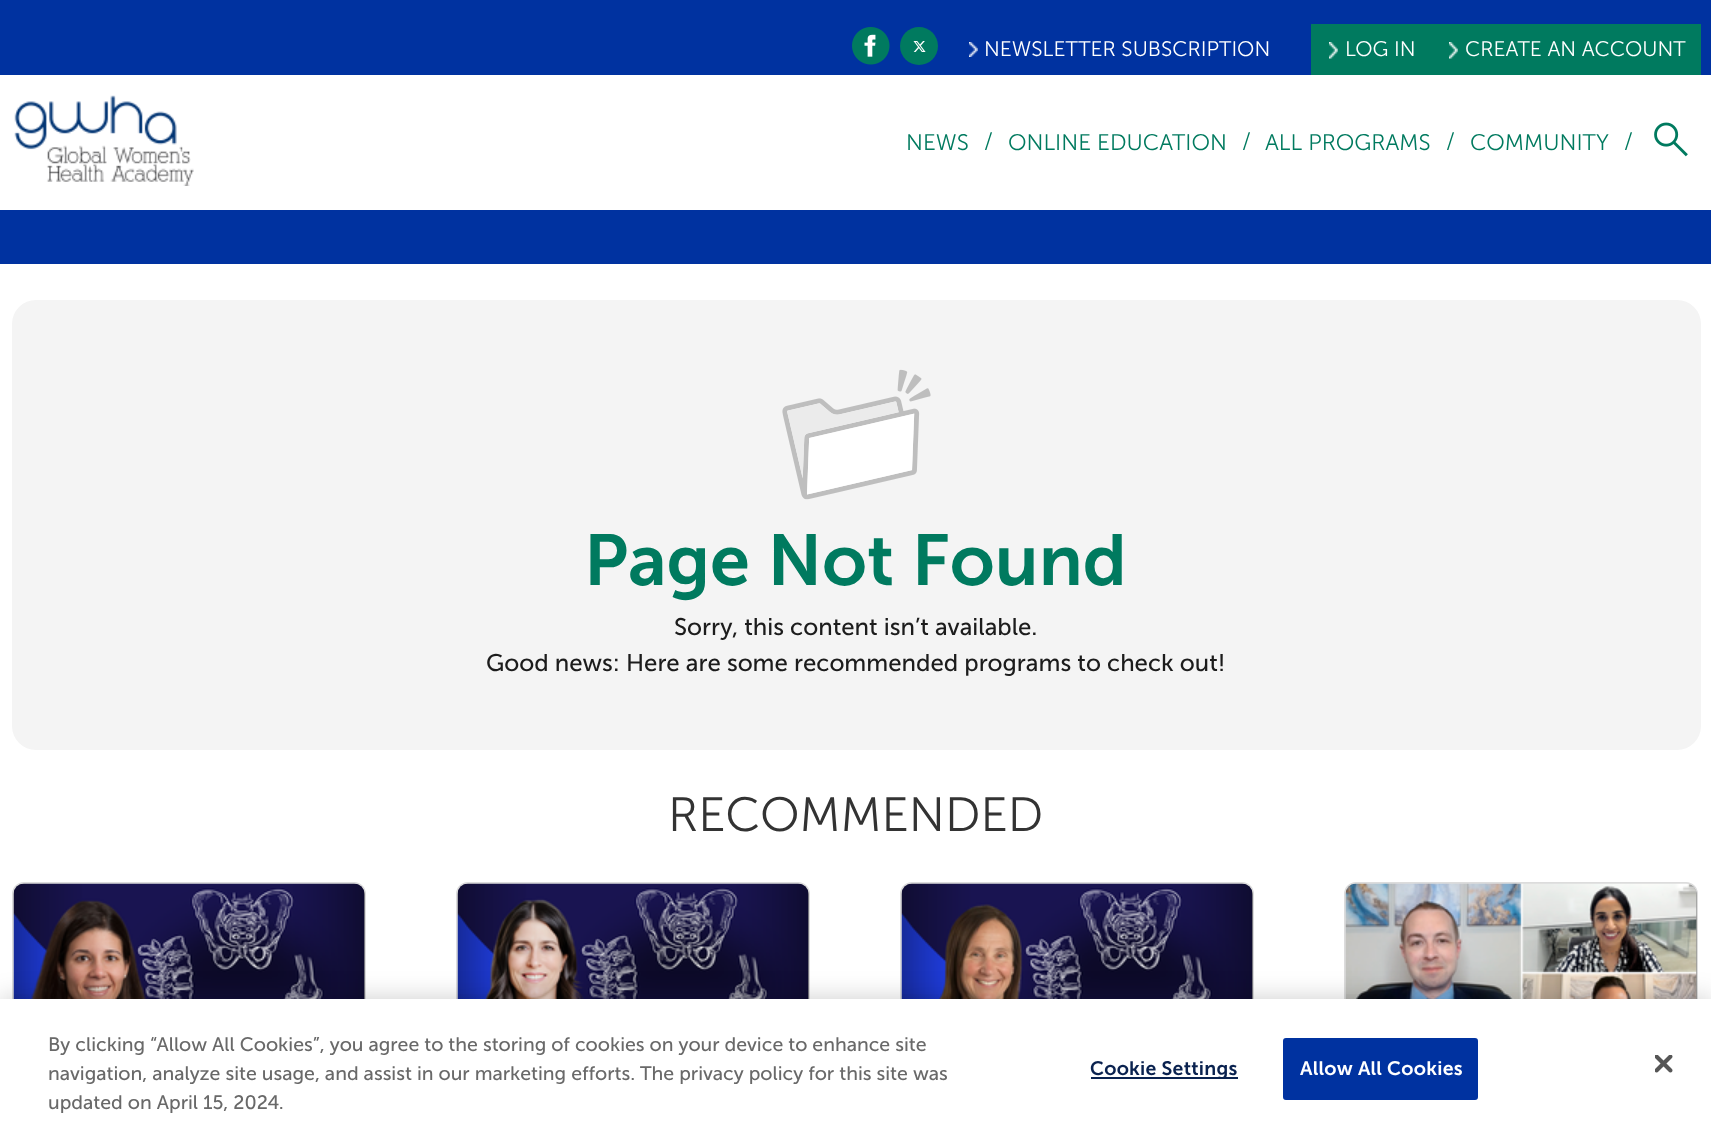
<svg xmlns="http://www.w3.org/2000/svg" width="1711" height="1132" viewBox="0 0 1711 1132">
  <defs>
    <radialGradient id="g1" gradientUnits="userSpaceOnUse" cx="0" cy="0" r="1" gradientTransform="matrix(137 0 0 98 14 1085)"><stop offset="0" stop-color="#000" stop-opacity="0.3"/><stop offset="1" stop-color="#000" stop-opacity="0"/></radialGradient>
    <radialGradient id="g2" gradientUnits="userSpaceOnUse" cx="0" cy="0" r="1" gradientTransform="matrix(137 0 0 98 458 1085)"><stop offset="0" stop-color="#000" stop-opacity="0.3"/><stop offset="1" stop-color="#000" stop-opacity="0"/></radialGradient>
    <radialGradient id="g3" gradientUnits="userSpaceOnUse" cx="0" cy="0" r="1" gradientTransform="matrix(137 0 0 98 902 1085)"><stop offset="0" stop-color="#000" stop-opacity="0.3"/><stop offset="1" stop-color="#000" stop-opacity="0"/></radialGradient>
    <radialGradient id="g4" gradientUnits="userSpaceOnUse" cx="0" cy="0" r="1" gradientTransform="matrix(137 0 0 98 1346 1085)"><stop offset="0" stop-color="#000" stop-opacity="0.3"/><stop offset="1" stop-color="#000" stop-opacity="0"/></radialGradient>
  </defs>
  <rect width="100%" height="100%" fill="#fff"/>
  <path d="M0 0h1711v75H0z" fill="#0032a0"/>
  <circle cx="871.5" cy="45.5" r="16.5" fill="#fff"/>
  <image x="852" y="27" width="38" height="38" href="img/1.png"/>
  <circle cx="919" cy="46" r="19" fill="#007a5f"/>
  <image x="913" y="41" width="13" height="11" href="img/2.png"/>
  <image x="969" y="42" width="9" height="15" href="img/3.png"/>
  <path d="M1311 24h390v51H1311z" fill="#007a5f"/>
  <image x="1329" y="42" width="9" height="17" href="img/4.png"/>
  <image x="1449" y="42" width="9" height="17" href="img/5.png"/>
  <image x="14" y="95" width="180" height="91" href="img/6.png"/>
  <image x="1654" y="122" width="34" height="35" href="img/7.png"/>
  <path d="M0 210h1711v54H0z" fill="#0032a0"/>
  <rect x="12" y="300" width="1689" height="450" rx="24" fill="#f4f4f4"/>
  <image x="782" y="369" width="149" height="131" href="img/8.png"/>
  <rect x="13" y="883" width="352" height="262" rx="11" fill="none" stroke="#dcdcdc" stroke-width="2"/>
  <path d="M25 884H354C360 884 365 889 365 895V1085H14V895C14 889 19 884 25 884Z" fill="#999"/>
  <image x="13" y="883" width="352" height="116" href="img/9.png"/>
  <path d="M14 994h19v5H14z" fill="url(#g1)"/>
  <rect x="457" y="883" width="352" height="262" rx="11" fill="none" stroke="#dcdcdc" stroke-width="2"/>
  <path d="M469 884H798C804 884 809 889 809 895V1085H458V895C458 889 463 884 469 884Z" fill="#999"/>
  <image x="457" y="883" width="352" height="116" href="img/10.png"/>
  <path d="M458 994h29v5H458z" fill="url(#g2)"/>
  <rect x="901" y="883" width="352" height="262" rx="11" fill="none" stroke="#dcdcdc" stroke-width="2"/>
  <path d="M913 884H1242C1248 884 1253 889 1253 895V1085H902V895C902 889 907 884 913 884Z" fill="#999"/>
  <image x="901" y="883" width="352" height="116" href="img/11.png"/>
  <path d="M902 994h39v5H902z" fill="url(#g3)"/>
  <rect x="1345" y="883" width="352" height="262" rx="11" fill="none" stroke="#dcdcdc" stroke-width="2"/>
  <path d="M1357 884H1686C1692 884 1697 889 1697 895V1085H1346V895C1346 889 1351 884 1357 884Z" fill="#999"/>
  <image x="1345" y="883" width="352" height="116" href="img/12.png"/>
  <path d="M1346 994h14v5H1346z" fill="url(#g4)"/>
  <path d="M0 999h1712v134H0z" fill="#00000033" filter="blur(13.5px)"/>
  <path d="M0 999h1711v133H0z" fill="#fff"/>
  <path d="M1091 1077h147v2H1091z" fill="#0a224f"/>
  <rect x="1284" y="1039" width="193" height="60" rx="2" fill="#0032a0" stroke="#0032a0" stroke-width="2"/>
  <image x="1655" y="1055" width="18" height="18" href="img/13.png"/>
  <g font-family="Museo Sans" font-size="21" font-weight="300" fill="#fff">
    <text x="984" y="56">NEWSLETTER SUBSCRIPTION</text>
    <text x="1345" y="56">LOG IN</text>
    <text x="1465" y="56">CREATE AN ACCOUNT</text>
  </g>
  <g font-family="Museo Sans" font-size="22.5" font-weight="300" fill="#007a5f">
    <text x="906" y="150">NEWS</text>
    <text x="984" y="149">/</text>
    <text x="1008" y="150">ONLINE EDUCATION</text>
    <text x="1242" y="149">/</text>
    <text x="1265" y="150">ALL PROGRAMS</text>
    <text x="1446" y="149">/</text>
    <text x="1470" y="150">COMMUNITY</text>
    <text x="1624" y="149">/</text>
  </g>
  <text x="584" y="585" font-family="Museo Sans" font-size="72" font-weight="600" fill="#007a5f">Page Not Found</text>
  <g font-family="Museo Sans" font-size="24" fill="#1c1c1c">
    <text x="674" y="635">Sorry, this content isn’t available.</text>
    <text x="486" y="671">Good news: Here are some recommended programs to check out!</text>
  </g>
  <text x="668" y="831" font-family="Museo Sans" font-size="48" font-weight="300" fill="#333">RECOMMENDED</text>
  <g font-family="Museo Sans" font-size="19.5" fill="#696969">
    <text x="48" y="1051">By clicking “Allow All Cookies”, you agree to the storing of cookies on your device to enhance site</text>
    <text x="48" y="1080">navigation, analyze site usage, and assist in our marketing efforts.</text>
    <text x="640" y="1080">The privacy policy for this site was</text>
    <text x="48" y="1109">updated on April 15, 2024.</text>
  </g>
  <text x="1090" y="1075" font-family="Museo Sans" font-size="19.5" font-weight="600" letter-spacing="0.25" fill="#0a224f">Cookie Settings</text>
  <text x="1300" y="1075" font-family="Museo Sans" font-size="19.5" font-weight="600" letter-spacing="0.25" fill="#fff">Allow All Cookies</text>
</svg>
